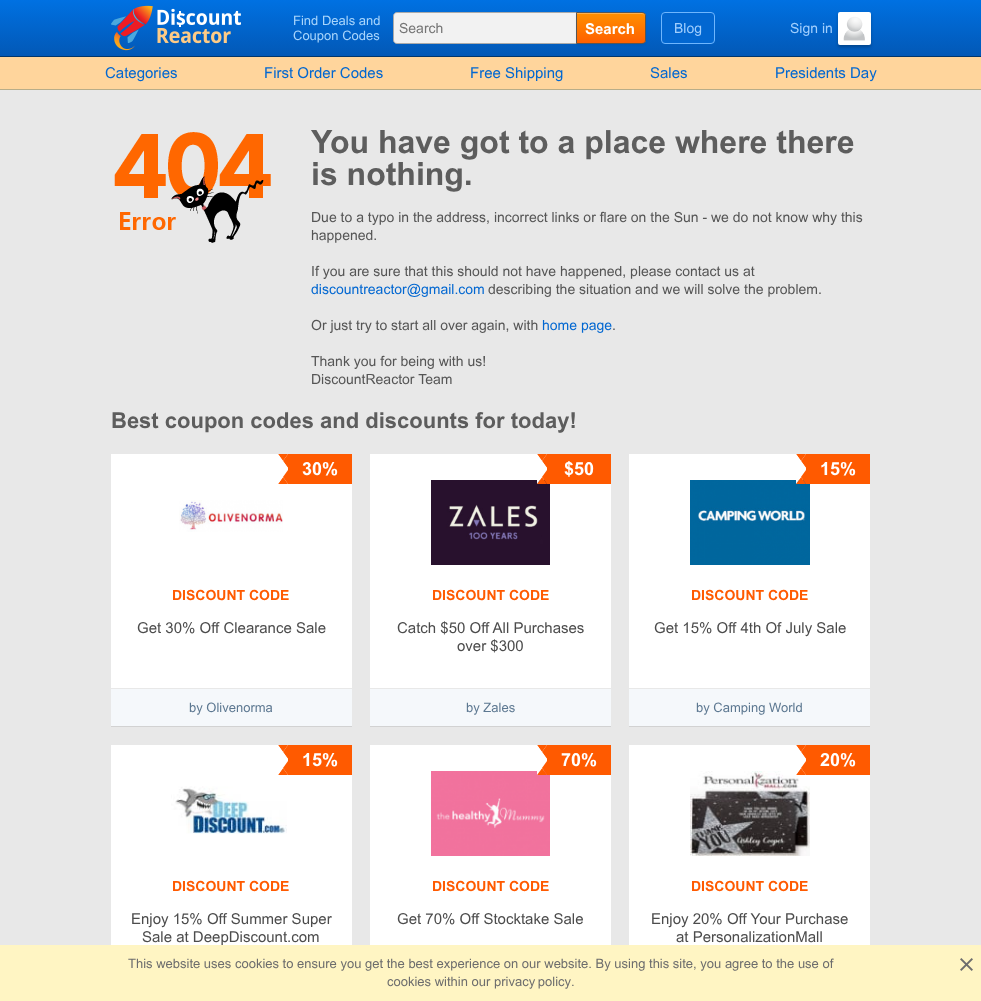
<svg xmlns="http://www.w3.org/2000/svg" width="981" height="1001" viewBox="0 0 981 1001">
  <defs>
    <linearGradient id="g1" gradientUnits="userSpaceOnUse" x1="491" y1="56" x2="491" y2="0"><stop offset="0" stop-color="#0258b6"/><stop offset="1" stop-color="#0071e2"/></linearGradient>
    <clipPath id="clip1"><path d="M576 12H642C644 12 646 14 646 16V40C646 42 644 44 642 44H576Z"/></clipPath>
    <linearGradient id="g2" gradientUnits="userSpaceOnUse" x1="611" y1="43" x2="611" y2="13"><stop offset="0" stop-color="#ff6000"/><stop offset="1" stop-color="#ff9000"/></linearGradient>
  </defs>
  <rect width="100%" height="100%" fill="#e8e8e8"/>
  <path d="M0 0h981v56H0z" fill="url(#g1)"/>
  <path d="M0 56h981v1H0z" fill="#01366c"/>
  <image x="111" y="5" width="130" height="46" href="img/1.png"/>
  <path d="M397 12.5H577.5V43.5H397C395 43.5 393.5 42 393.5 40V16C393.5 14 395 12.5 397 12.5Z" fill="#f2f2f2" stroke="#aaa"/>
  <rect x="576" y="13" width="70" height="32" rx="4" fill="#0000000d" filter="blur(1px)"/>
  <g clip-path="url(#clip1)">
    <path d="M577 13h69v30H577z" fill="url(#g2)"/>
  </g>
  <path d="M577 14H642C644 14 645 15 645 17V16C645 14 644 13 642 13H577Z" fill="#ffb14d"/>
  <path d="M576.5 12.5H642C644 12.5 645.5 14 645.5 16V40C645.5 42 644 43.5 642 43.5H576.5Z" fill="none" stroke="#555"/>
  <rect x="661.5" y="12.5" width="53" height="31" rx="3.5" fill="#0267d1" stroke="#6eb6fe"/>
  <rect x="838" y="14" width="33" height="33" rx="2" fill="#00000040" filter="blur(1.5px)"/>
  <rect x="839" y="13" width="31" height="31" rx="1" fill="none" stroke="#fff" stroke-width="2"/>
  <image x="840" y="14" width="29" height="29" href="img/2.png"/>
  <path d="M0 57h981v32H0z" fill="#ffd59c"/>
  <path d="M0 89h981v1H0z" fill="#b8ad89"/>
  <image x="114" y="132" width="157" height="111" href="img/3.png"/>
  <path d="M111 454h241v234H111z" fill="#fff"/>
  <path d="M111 726h241v1H111z" fill="#d2d2d2"/>
  <path d="M111 689h241v37H111z" fill="#f5f8fb"/>
  <path d="M288 454h64v30H288z" fill="#ff5a00"/>
  <path d="M278 454H288L283 461Z" fill="#ff5a00"/>
  <path d="M288 454V468L283 461Z" fill="#ff5a00"/>
  <path d="M288 468H278L283 461Z" fill="#fff"/>
  <path d="M278 468V454L283 461Z" fill="#fff"/>
  <path d="M288 470V484L283 477Z" fill="#ff5a00"/>
  <path d="M288 484H278L283 477Z" fill="#ff5a00"/>
  <path d="M278 484V470L283 477Z" fill="#fff"/>
  <image x="179" y="500" width="104" height="32" href="img/4.png"/>
  <path d="M370 454h241v234H370z" fill="#fff"/>
  <path d="M370 726h241v1H370z" fill="#d2d2d2"/>
  <path d="M370 689h241v37H370z" fill="#f5f8fb"/>
  <image x="431" y="480" width="119" height="85" href="img/5.png"/>
  <path d="M547 454h64v30H547z" fill="#ff5a00"/>
  <path d="M537 454H547L542 461Z" fill="#ff5a00"/>
  <path d="M547 454V468L542 461Z" fill="#ff5a00"/>
  <path d="M547 468H537L542 461Z" fill="#fff"/>
  <path d="M537 468V454L542 461Z" fill="#fff"/>
  <path d="M547 470V484L542 477Z" fill="#ff5a00"/>
  <path d="M547 484H537L542 477Z" fill="#ff5a00"/>
  <path d="M537 484V470L542 477Z" fill="#fff"/>
  <path d="M629 454h241v234H629z" fill="#fff"/>
  <path d="M629 726h241v1H629z" fill="#d2d2d2"/>
  <path d="M629 689h241v37H629z" fill="#f5f8fb"/>
  <image x="690" y="480" width="120" height="85" href="img/6.png"/>
  <path d="M806 454h64v30H806z" fill="#ff5a00"/>
  <path d="M796 454H806L801 461Z" fill="#ff5a00"/>
  <path d="M806 454V468L801 461Z" fill="#ff5a00"/>
  <path d="M806 468H796L801 461Z" fill="#fff"/>
  <path d="M796 468V454L801 461Z" fill="#fff"/>
  <path d="M806 470V484L801 477Z" fill="#ff5a00"/>
  <path d="M806 484H796L801 477Z" fill="#ff5a00"/>
  <path d="M796 484V470L801 477Z" fill="#fff"/>
  <path d="M111 745h241v200H111z" fill="#fff"/>
  <path d="M288 745h64v30H288z" fill="#ff5a00"/>
  <path d="M278 745H288L283 752Z" fill="#ff5a00"/>
  <path d="M288 745V759L283 752Z" fill="#ff5a00"/>
  <path d="M288 759H278L283 752Z" fill="#fff"/>
  <path d="M278 759V745L283 752Z" fill="#fff"/>
  <path d="M288 761V775L283 768Z" fill="#ff5a00"/>
  <path d="M288 775H278L283 768Z" fill="#ff5a00"/>
  <path d="M278 775V761L283 768Z" fill="#fff"/>
  <image x="171" y="786" width="116" height="48" href="img/7.png"/>
  <path d="M370 745h241v200H370z" fill="#fff"/>
  <image x="431" y="771" width="119" height="85" href="img/8.png"/>
  <path d="M547 745h64v30H547z" fill="#ff5a00"/>
  <path d="M537 745H547L542 752Z" fill="#ff5a00"/>
  <path d="M547 745V759L542 752Z" fill="#ff5a00"/>
  <path d="M547 759H537L542 752Z" fill="#fff"/>
  <path d="M537 759V745L542 752Z" fill="#fff"/>
  <path d="M547 761V775L542 768Z" fill="#ff5a00"/>
  <path d="M547 775H537L542 768Z" fill="#ff5a00"/>
  <path d="M537 775V761L542 768Z" fill="#fff"/>
  <path d="M629 745h241v200H629z" fill="#fff"/>
  <image x="690" y="771" width="120" height="85" href="img/9.png"/>
  <path d="M806 745h64v30H806z" fill="#ff5a00"/>
  <path d="M796 745H806L801 752Z" fill="#ff5a00"/>
  <path d="M806 745V759L801 752Z" fill="#ff5a00"/>
  <path d="M806 759H796L801 752Z" fill="#fff"/>
  <path d="M796 759V745L801 752Z" fill="#fff"/>
  <path d="M806 761V775L801 768Z" fill="#ff5a00"/>
  <path d="M806 775H796L801 768Z" fill="#ff5a00"/>
  <path d="M796 775V761L801 768Z" fill="#fff"/>
  <path d="M0 945h981v56H0z" fill="#fff5c3"/>
  <image x="960" y="958" width="13" height="13" href="img/10.png"/>
  <g font-family="Arial" font-size="13" fill="#a8d5fc">
    <text x="293" y="25">Find Deals and</text>
    <text x="293" y="40">Coupon Codes</text>
  </g>
  <text x="399" y="33" font-family="Arial" font-size="14" fill="#757575">Search</text>
  <text x="585" y="34" font-family="Arial" font-size="15" font-weight="bold" fill="#fff">Search</text>
  <g font-family="Arial" font-size="14" fill="#a1cffe">
    <text x="674" y="33">Blog</text>
    <text x="790" y="33">Sign in</text>
  </g>
  <g font-family="Arial" font-size="15" fill="#0267d1">
    <text x="105" y="78">Categories</text>
    <text x="264" y="78">First Order Codes</text>
    <text x="470" y="78">Free Shipping</text>
    <text x="650" y="78">Sales</text>
    <text x="775" y="78">Presidents Day</text>
  </g>
  <g font-family="Arial" font-size="32" font-weight="bold" fill="#5d5d5d">
    <text x="311" y="153">You have got to a place where there</text>
    <text x="311" y="185">is nothing.</text>
  </g>
  <g font-family="Arial" font-size="14" fill="#555">
    <text x="311" y="222">Due to a typo in the address, incorrect links or flare on the Sun - we do not know why this</text>
    <text x="311" y="240">happened.</text>
    <text x="311" y="276">If you are sure that this should not have happened, please contact us at</text>
  </g>
  <text x="311" y="294" font-family="Arial" font-size="14" fill="#0267d1">discountreactor@gmail.com</text>
  <g font-family="Arial" font-size="14" fill="#555">
    <text x="488" y="294">describing the situation and we will solve the problem.</text>
    <text x="311" y="330">Or just try to start all over again, with</text>
  </g>
  <text x="542" y="330" font-family="Arial" font-size="14" fill="#0267d1">home page</text>
  <g font-family="Arial" font-size="14" fill="#555">
    <text x="612" y="330">.</text>
    <text x="311" y="366">Thank you for being with us!</text>
    <text x="311" y="384">DiscountReactor Team</text>
  </g>
  <text x="111" y="428" font-family="Arial" font-size="22" font-weight="bold" fill="#5d5d5d">Best coupon codes and discounts for today!</text>
  <text x="302" y="475" font-family="Arial" font-size="18" font-weight="bold" fill="#fff">30%</text>
  <text x="189" y="712" font-family="Arial" font-size="13" fill="#5d7891">by Olivenorma</text>
  <text x="172" y="600" font-family="Arial" font-size="14" font-weight="bold" fill="#ff5a00">DISCOUNT CODE</text>
  <text x="137" y="633" font-family="Arial" font-size="15" fill="#4c4c4c">Get 30% Off Clearance Sale</text>
  <text x="564" y="475" font-family="Arial" font-size="18" font-weight="bold" fill="#fff">$50</text>
  <text x="466" y="712" font-family="Arial" font-size="13" fill="#5d7891">by Zales</text>
  <text x="432" y="600" font-family="Arial" font-size="14" font-weight="bold" fill="#ff5a00">DISCOUNT CODE</text>
  <g font-family="Arial" font-size="15" fill="#4c4c4c">
    <text x="397" y="633">Catch $50 Off All Purchases</text>
    <text x="457" y="651">over $300</text>
  </g>
  <text x="820" y="475" font-family="Arial" font-size="18" font-weight="bold" fill="#fff">15%</text>
  <text x="696" y="712" font-family="Arial" font-size="13" fill="#5d7891">by Camping World</text>
  <text x="691" y="600" font-family="Arial" font-size="14" font-weight="bold" fill="#ff5a00">DISCOUNT CODE</text>
  <text x="654" y="633" font-family="Arial" font-size="15" fill="#4c4c4c">Get 15% Off 4th Of July Sale</text>
  <text x="302" y="766" font-family="Arial" font-size="18" font-weight="bold" fill="#fff">15%</text>
  <text x="172" y="891" font-family="Arial" font-size="14" font-weight="bold" fill="#ff5a00">DISCOUNT CODE</text>
  <g font-family="Arial" font-size="15" fill="#4c4c4c">
    <text x="131" y="924">Enjoy 15% Off Summer Super</text>
    <text x="142" y="942">Sale at DeepDiscount.com</text>
  </g>
  <text x="561" y="766" font-family="Arial" font-size="18" font-weight="bold" fill="#fff">70%</text>
  <text x="432" y="891" font-family="Arial" font-size="14" font-weight="bold" fill="#ff5a00">DISCOUNT CODE</text>
  <text x="397" y="924" font-family="Arial" font-size="15" fill="#4c4c4c">Get 70% Off Stocktake Sale</text>
  <text x="820" y="766" font-family="Arial" font-size="18" font-weight="bold" fill="#fff">20%</text>
  <text x="691" y="891" font-family="Arial" font-size="14" font-weight="bold" fill="#ff5a00">DISCOUNT CODE</text>
  <g font-family="Arial" font-size="15" fill="#4c4c4c">
    <text x="651" y="924">Enjoy 20% Off Your Purchase</text>
    <text x="676" y="942">at PersonalizationMall</text>
  </g>
  <g font-family="Arial" font-size="13" fill="#6d6d6d">
    <text x="128" y="968">This website uses cookies to ensure you get the best experience on our website. By using this site, you agree to the use of</text>
    <text x="387" y="986">cookies within our</text>
    <text x="494" y="986" word-spacing="-1">privacy policy</text>
    <text x="571" y="986">.</text>
  </g>
</svg>
